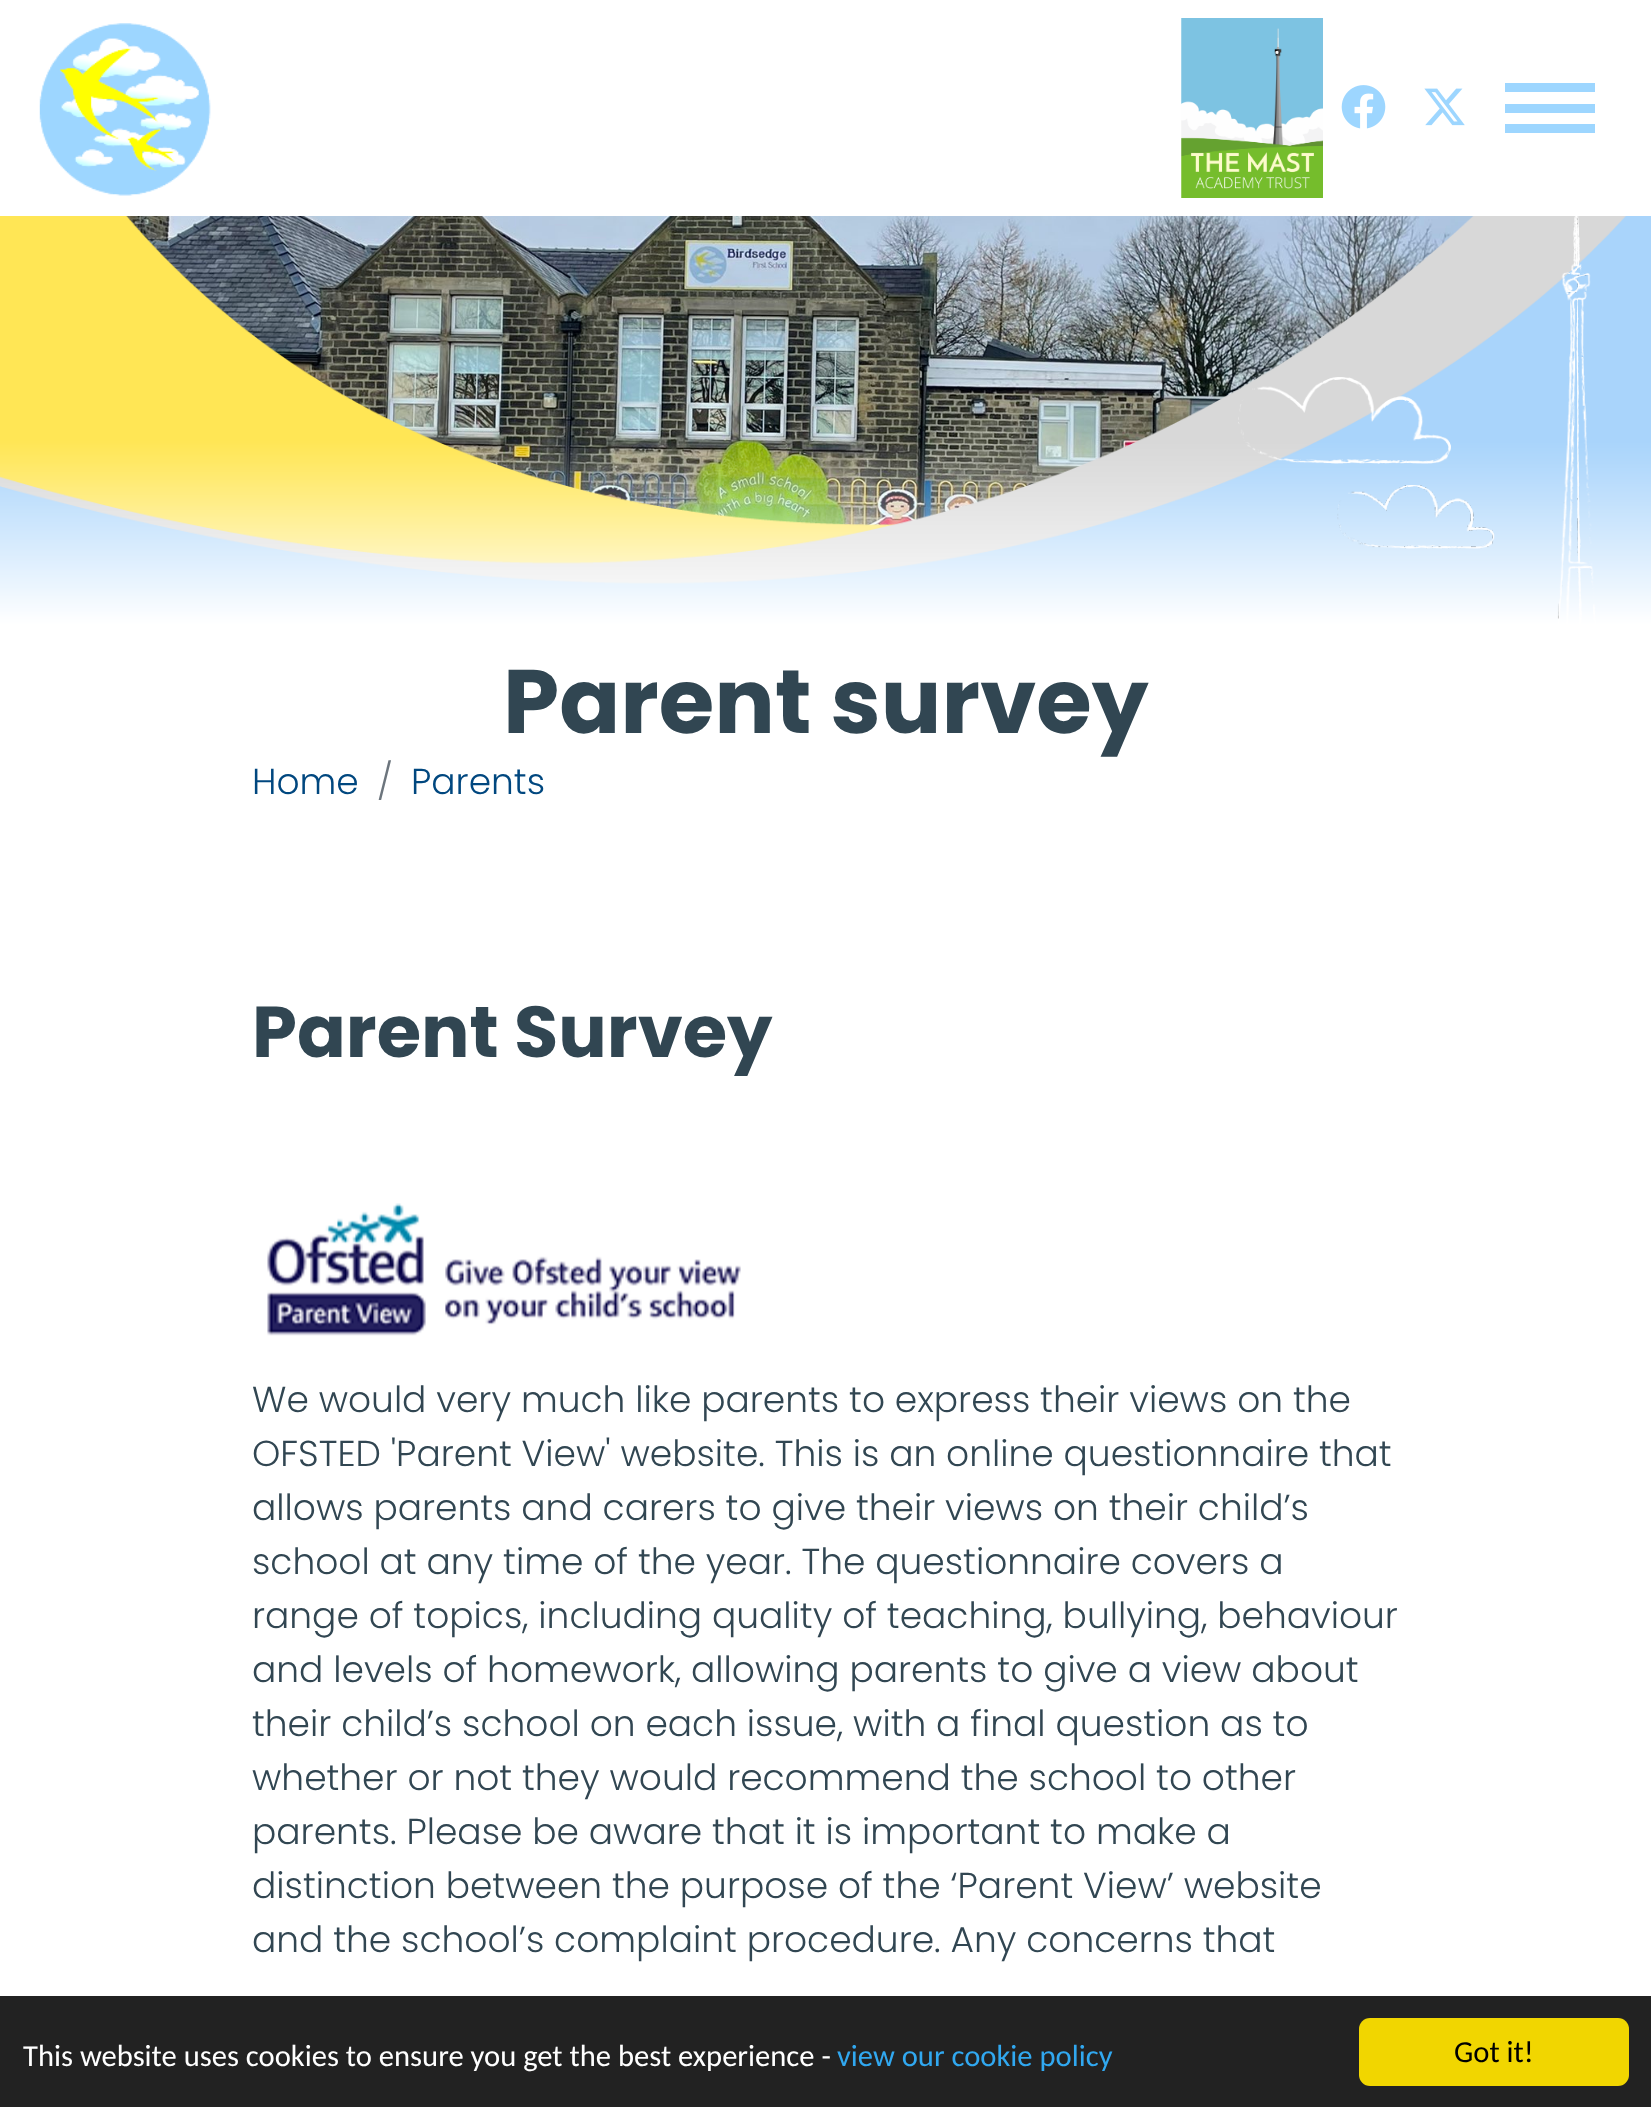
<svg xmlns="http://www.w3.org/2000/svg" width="1651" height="2107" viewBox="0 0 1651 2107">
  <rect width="100%" height="100%" fill="#fff"/>
  <image x="39" y="23" width="172" height="173" href="img/1.png"/>
  <image x="1181" y="18" width="142" height="180" href="img/2.png"/>
  <image x="1341" y="85" width="45" height="44" href="img/3.png"/>
  <image x="1424" y="88" width="41" height="38" href="img/4.png"/>
  <path d="M1505 83h90v9H1505z" fill="#9dd6ff"/>
  <path d="M1505 104h90v9H1505z" fill="#9dd6ff"/>
  <path d="M1505 124h90v9H1505z" fill="#9dd6ff"/>
  <image x="126" y="216" width="1348" height="310" href="img/5.png"/>
  <image x="0" y="216" width="1651" height="432" href="img/6.png"/>
  <image x="267" y="1203" width="474" height="133" href="img/7.png"/>
  <path d="M0 1996h1651v111H0z" fill="#222"/>
  <rect x="1359" y="2018" width="270" height="68" rx="11" fill="#f1d600"/>
  <text x="503" y="733" font-family="Poppins" font-size="90" font-weight="bold" fill="#314652">Parent survey</text>
  <text x="252" y="794" font-family="Poppins" font-size="36" font-weight="300" fill="#00477f">Home</text>
  <text x="377" y="794" font-family="Poppins" font-size="36" font-weight="300" fill="#6c757d">/</text>
  <text x="411" y="794" font-family="Poppins" font-size="36" font-weight="300" fill="#00477f">Parents</text>
  <text x="252" y="1057" font-family="Poppins" font-size="72" font-weight="bold" fill="#314652">Parent Survey</text>
  <g font-family="Poppins" font-size="36" font-weight="300" fill="#314652">
    <text x="252" y="1412">We would very much like parents to express their views on the</text>
    <text x="252" y="1466">OFSTED 'Parent View' website. This is an online questionnaire that</text>
    <text x="252" y="1520">allows parents and carers to give their views on their child’s</text>
    <text x="252" y="1574">school at any time of the year. The questionnaire covers a</text>
    <text x="252" y="1628">range of topics, including quality of teaching, bullying, behaviour</text>
    <text x="252" y="1682">and levels of homework, allowing parents to give a view about</text>
    <text x="252" y="1736">their child’s school on each issue, with a final question as to</text>
    <text x="252" y="1790">whether or not they would recommend the school to other</text>
    <text x="252" y="1844">parents. Please be aware that it is important to make a</text>
    <text x="252" y="1898">distinction between the purpose of the ‘Parent View’ website</text>
    <text x="252" y="1952">and the school’s complaint procedure. Any concerns that</text>
  </g>
  <text x="23" y="2066" font-family="Carlito" font-size="30.6" fill="#fff">This website uses cookies to ensure you get the best experience -</text>
  <text x="837" y="2066" font-family="Carlito" font-size="30.6" fill="#31a8f0">view our cookie policy</text>
  <text x="1454" y="2062" font-family="Carlito" font-size="30.6" fill="#000">Got it!</text>
</svg>
